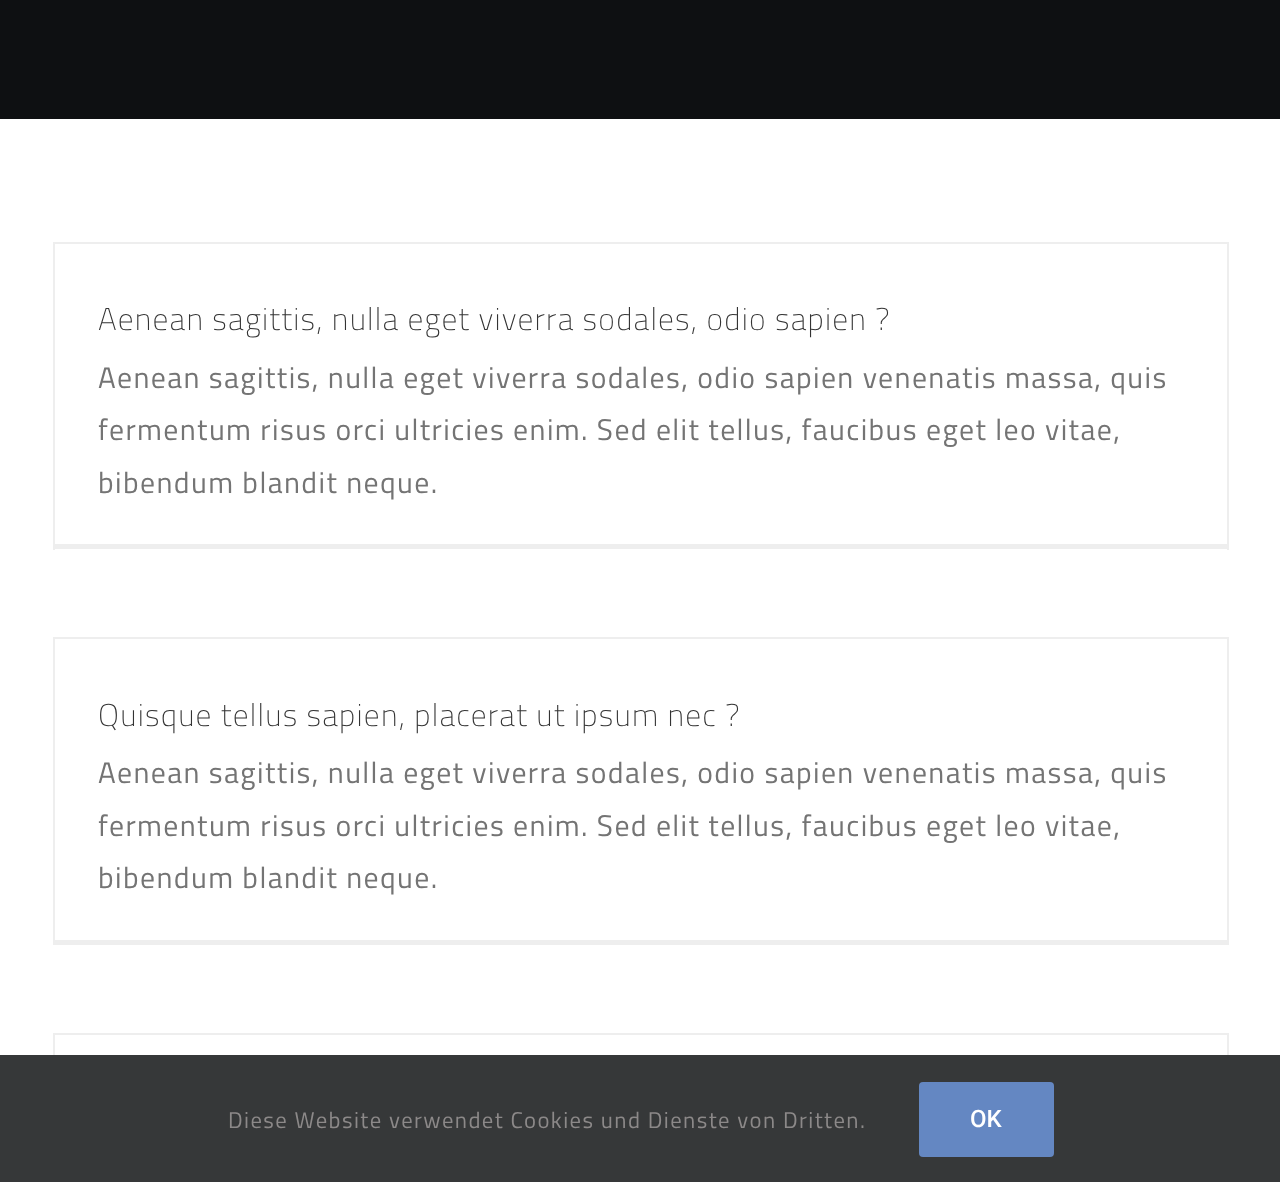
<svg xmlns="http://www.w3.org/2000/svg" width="1280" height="1182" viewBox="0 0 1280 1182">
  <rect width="100%" height="100%" fill="#fff"/>
  <path d="M0 0h1280v119H0z" fill="#0e1012"/>
  <path d="M53 242h1176v2H53z" fill="#eee"/>
  <path d="M1227 242h2v308H1227z" fill="#eee"/>
  <path d="M53 544h1176v5H53z" fill="#eee"/>
  <path d="M53 242h2v308H53z" fill="#eee"/>
  <path d="M53 637h1176v2H53z" fill="#eee"/>
  <path d="M1227 637h2v308H1227z" fill="#eee"/>
  <path d="M53 940h1176v5H53z" fill="#eee"/>
  <path d="M53 637h2v308H53z" fill="#eee"/>
  <path d="M53 1033h1176v2H53z" fill="#eee"/>
  <path d="M1227 1033h2v22H1227z" fill="#eee"/>
  <path d="M53 1033h2v22H53z" fill="#eee"/>
  <path d="M0 1055h1280v127H0z" fill="#363839"/>
  <rect x="919" y="1082" width="135" height="75" rx="4" fill="#6487c2"/>
  <text x="98" y="330" font-family="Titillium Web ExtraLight" font-size="31.5" font-weight="200" letter-spacing="1.22" fill="#333">Aenean sagittis, nulla eget viverra sodales, odio sapien ?</text>
  <g font-family="Titillium Web" font-size="29.75" letter-spacing="1.4" fill="#747474">
    <text x="98" y="388">Aenean sagittis, nulla eget viverra sodales, odio sapien venenatis massa, quis</text>
    <text x="98" y="440">fermentum risus orci ultricies enim. Sed elit tellus, faucibus eget leo vitae,</text>
    <text x="98" y="493">bibendum blandit neque.</text>
  </g>
  <text x="98" y="726" font-family="Titillium Web ExtraLight" font-size="31.5" font-weight="200" letter-spacing="1.22" fill="#333">Quisque tellus sapien, placerat ut ipsum nec ?</text>
  <g font-family="Titillium Web" font-size="29.75" letter-spacing="1.4" fill="#747474">
    <text x="98" y="783">Aenean sagittis, nulla eget viverra sodales, odio sapien venenatis massa, quis</text>
    <text x="98" y="836">fermentum risus orci ultricies enim. Sed elit tellus, faucibus eget leo vitae,</text>
    <text x="98" y="888">bibendum blandit neque.</text>
  </g>
  <text x="228" y="1128" font-family="Titillium Web" font-size="22.75" letter-spacing="1.4" fill="#8c8989">Diese Website verwendet Cookies und Dienste von Dritten.</text>
  <text x="970" y="1127" font-family="Roboto" font-size="24" font-weight="500" fill="#fff">OK</text>
</svg>
